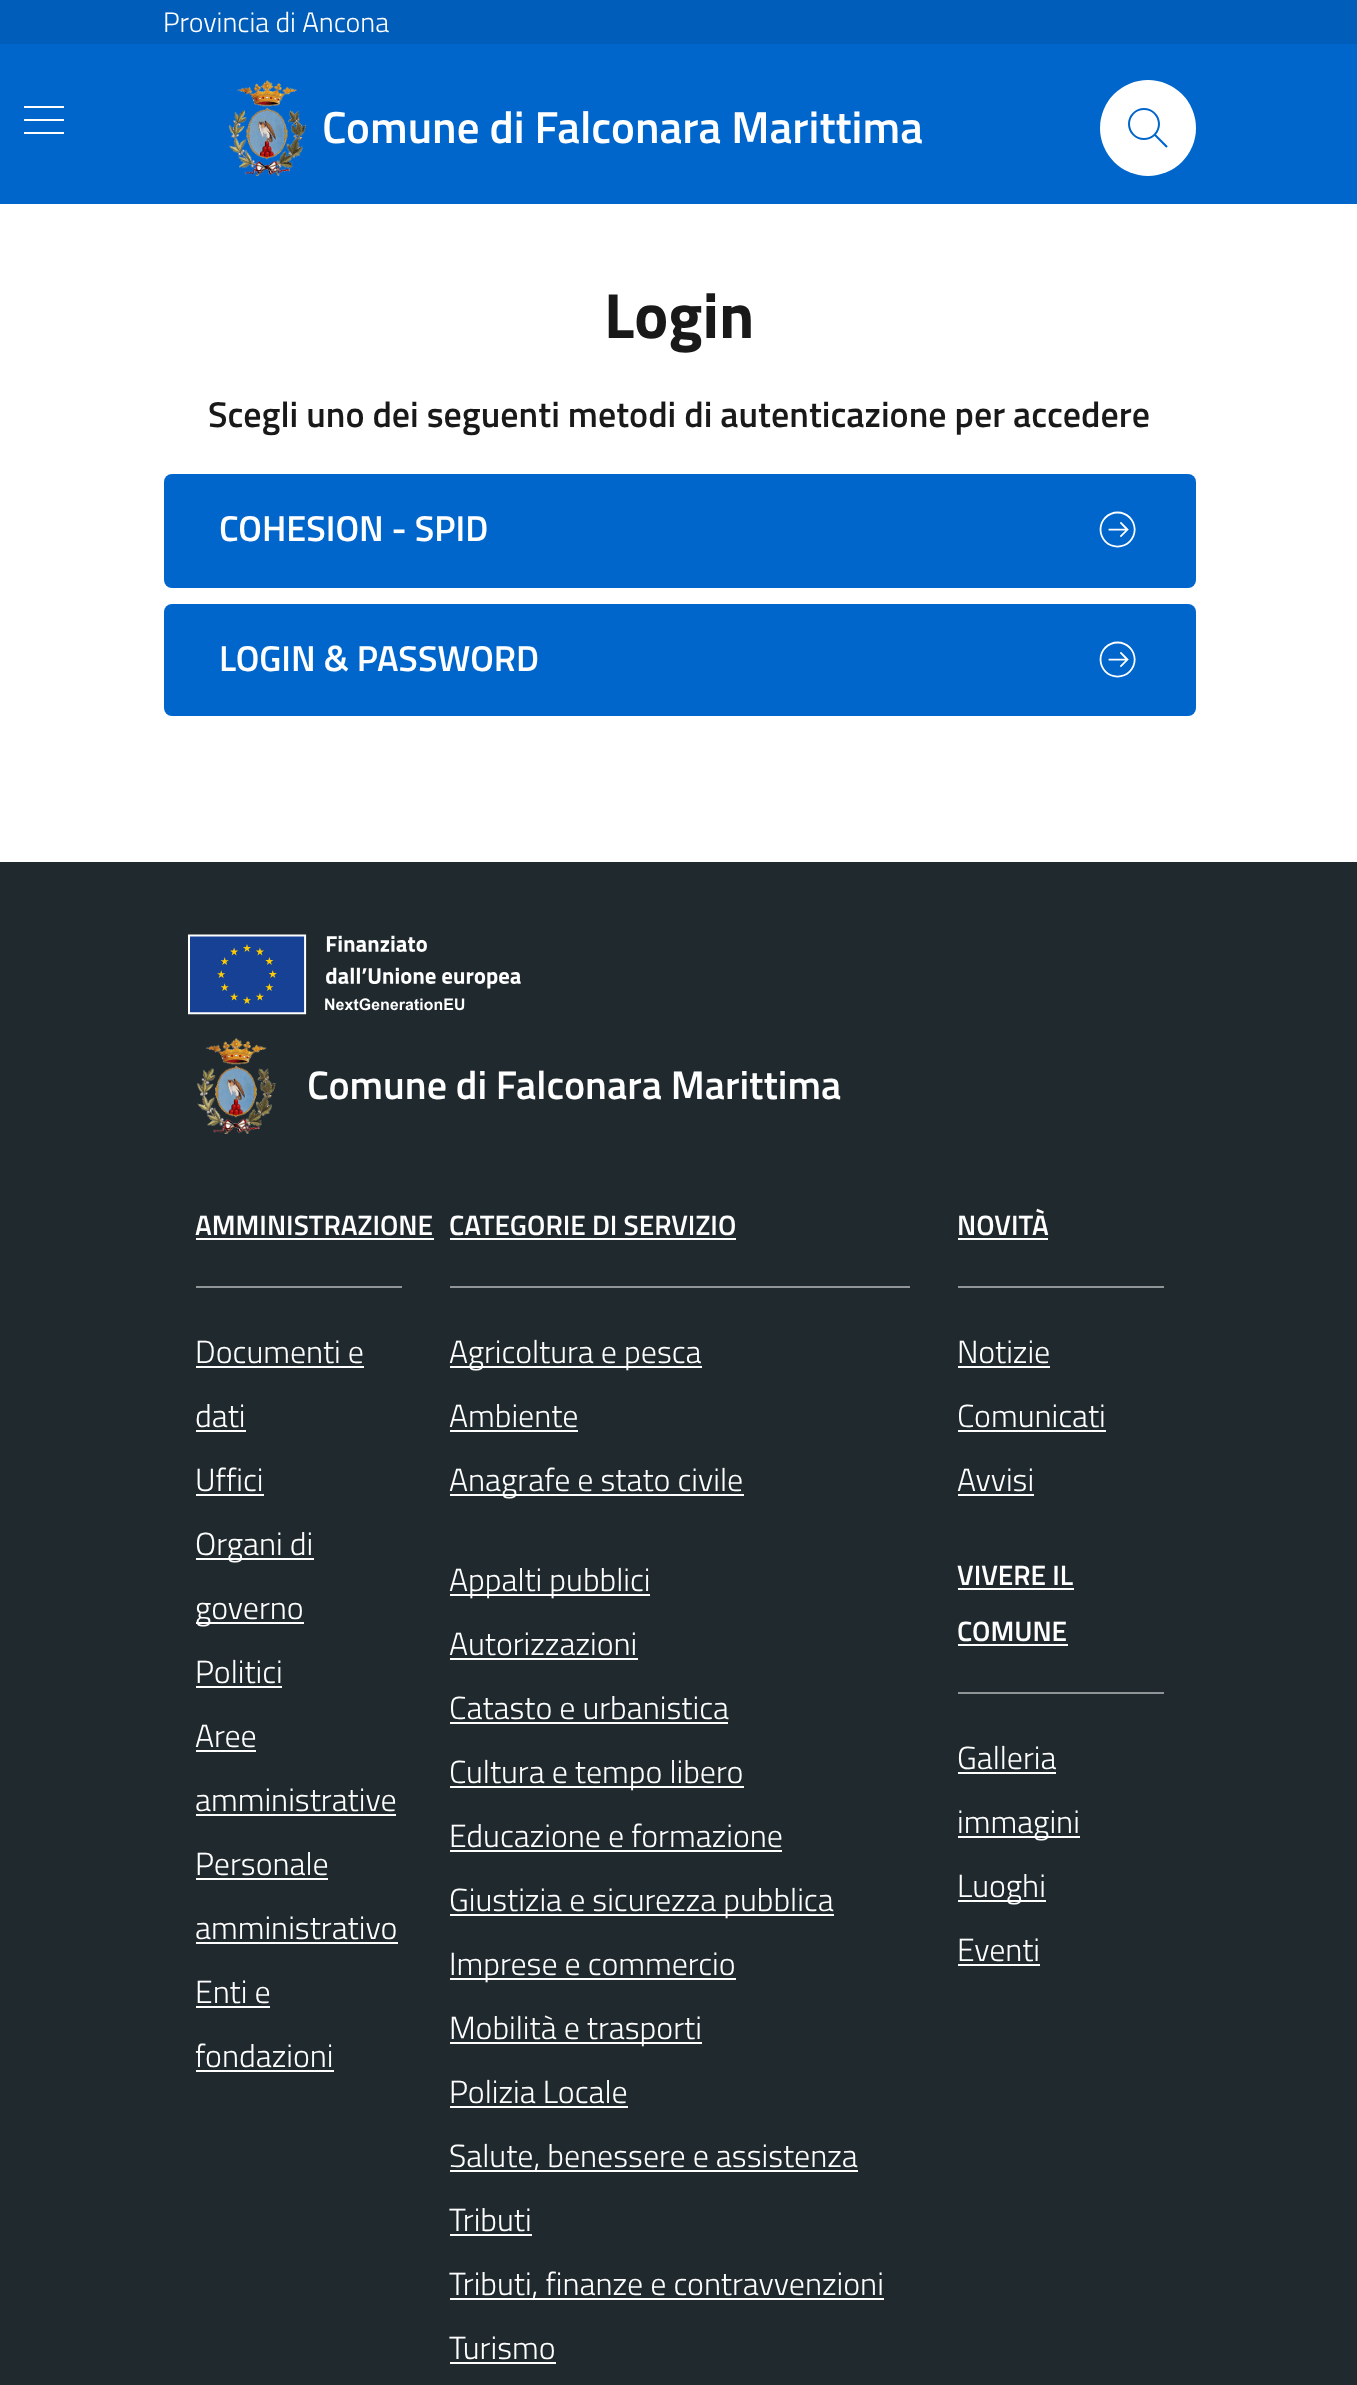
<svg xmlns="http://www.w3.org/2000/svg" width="1357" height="2385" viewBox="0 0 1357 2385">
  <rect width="100%" height="100%" fill="#fff"/>
  <path d="M0 0h1357v44H0z" fill="#005dba"/>
  <path d="M0 44h1357v160H0z" fill="#06c"/>
  <image x="24" y="106" width="40" height="28" href="img/1.png"/>
  <image x="228" y="80" width="78" height="96" href="img/2.png"/>
  <circle cx="1148" cy="128" r="48" fill="#fff"/>
  <image x="1128" y="108" width="40" height="40" href="img/3.png"/>
  <rect x="164" y="474" width="1032" height="114" rx="8" fill="#06c"/>
  <image x="1099" y="511" width="37" height="37" href="img/4.png"/>
  <rect x="164" y="604" width="1032" height="112" rx="8" fill="#06c"/>
  <image x="1099" y="641" width="37" height="37" href="img/4.png"/>
  <path d="M0 862h1357v1523H0z" fill="#202a2e"/>
  <image x="188" y="934" width="333" height="81" href="img/5.png"/>
  <image x="197" y="1038" width="79" height="96" href="img/6.png"/>
  <path d="M196 1286h206v2H196z" fill="#909597"/>
  <path d="M196 1238h238v2H196z" fill="#fff"/>
  <path d="M196 1366h168v2H196z" fill="#fff"/>
  <path d="M196 1430h50v2H196z" fill="#fff"/>
  <path d="M196 1494h68v2H196z" fill="#fff"/>
  <path d="M196 1558h118v2H196z" fill="#fff"/>
  <path d="M196 1622h108v2H196z" fill="#fff"/>
  <path d="M196 1686h86v2H196z" fill="#fff"/>
  <path d="M196 1750h60v2H196z" fill="#fff"/>
  <path d="M196 1814h200v2H196z" fill="#fff"/>
  <path d="M196 1878h132v2H196z" fill="#fff"/>
  <path d="M196 1942h202v2H196z" fill="#fff"/>
  <path d="M196 2006h74v2H196z" fill="#fff"/>
  <path d="M196 2070h138v2H196z" fill="#fff"/>
  <path d="M450 1286h460v2H450z" fill="#909597"/>
  <path d="M450 1238h286v2H450z" fill="#fff"/>
  <path d="M450 1366h252v2H450z" fill="#fff"/>
  <path d="M450 1430h128v2H450z" fill="#fff"/>
  <path d="M450 1494h294v2H450z" fill="#fff"/>
  <path d="M450 1594h200v2H450z" fill="#fff"/>
  <path d="M450 1658h188v2H450z" fill="#fff"/>
  <path d="M450 1722h278v2H450z" fill="#fff"/>
  <path d="M450 1786h294v2H450z" fill="#fff"/>
  <path d="M450 1850h332v2H450z" fill="#fff"/>
  <path d="M450 1914h384v2H450z" fill="#fff"/>
  <path d="M450 1978h286v2H450z" fill="#fff"/>
  <path d="M450 2042h252v2H450z" fill="#fff"/>
  <path d="M450 2106h178v2H450z" fill="#fff"/>
  <path d="M450 2170h408v2H450z" fill="#fff"/>
  <path d="M450 2234h82v2H450z" fill="#fff"/>
  <path d="M450 2298h434v2H450z" fill="#fff"/>
  <path d="M450 2362h106v2H450z" fill="#fff"/>
  <path d="M958 1286h206v2H958z" fill="#909597"/>
  <path d="M958 1238h90v2H958z" fill="#fff"/>
  <path d="M958 1366h92v2H958z" fill="#fff"/>
  <path d="M958 1430h148v2H958z" fill="#fff"/>
  <path d="M958 1494h76v2H958z" fill="#fff"/>
  <path d="M958 1692h206v2H958z" fill="#909597"/>
  <path d="M958 1588h116v2H958z" fill="#fff"/>
  <path d="M958 1644h110v2H958z" fill="#fff"/>
  <path d="M958 1772h98v2H958z" fill="#fff"/>
  <path d="M958 1836h122v2H958z" fill="#fff"/>
  <path d="M958 1900h88v2H958z" fill="#fff"/>
  <path d="M958 1964h82v2H958z" fill="#fff"/>
  <text x="163" y="32" font-family="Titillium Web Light" font-size="28" font-weight="300" fill="#fff">Provincia di Ancona</text>
  <text x="322" y="143" font-family="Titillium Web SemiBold" font-size="45" font-weight="600" fill="#fff">Comune di Falconara Marittima</text>
  <text x="604" y="338" font-family="Titillium Web" font-size="64" font-weight="bold" fill="#191919">Login</text>
  <text x="208" y="427" font-family="Titillium Web SemiBold" font-size="36" font-weight="600" fill="#191919">Scegli uno dei seguenti metodi di autenticazione per accedere</text>
  <g font-family="Titillium Web SemiBold" font-size="36" font-weight="600" fill="#fff">
    <text x="219" y="541">COHESION - SPID</text>
    <text x="219" y="671">LOGIN &amp; PASSWORD</text>
  </g>
  <text x="307" y="1099" font-family="Titillium Web SemiBold" font-size="40" font-weight="600" fill="#fff">Comune di Falconara Marittima</text>
  <text x="195" y="1235" font-family="Titillium Web SemiBold" font-size="28" font-weight="600" fill="#fff">AMMINISTRAZIONE</text>
  <g font-family="Titillium Web Light" font-size="32" font-weight="300" fill="#fff">
    <text x="195" y="1363">Documenti e</text>
    <text x="195" y="1427">dati</text>
    <text x="195" y="1491">Uffici</text>
    <text x="195" y="1555">Organi di</text>
    <text x="195" y="1619">governo</text>
    <text x="195" y="1683">Politici</text>
    <text x="195" y="1747">Aree</text>
    <text x="195" y="1811">amministrative</text>
    <text x="195" y="1875">Personale</text>
    <text x="195" y="1939">amministrativo</text>
    <text x="195" y="2003">Enti e</text>
    <text x="195" y="2067">fondazioni</text>
  </g>
  <text x="449" y="1235" font-family="Titillium Web SemiBold" font-size="28" font-weight="600" fill="#fff">CATEGORIE DI SERVIZIO</text>
  <g font-family="Titillium Web Light" font-size="32" font-weight="300" fill="#fff">
    <text x="449" y="1363">Agricoltura e pesca</text>
    <text x="449" y="1427">Ambiente</text>
    <text x="449" y="1491">Anagrafe e stato civile</text>
    <text x="449" y="1591">Appalti pubblici</text>
    <text x="449" y="1655">Autorizzazioni</text>
    <text x="449" y="1719">Catasto e urbanistica</text>
    <text x="449" y="1783">Cultura e tempo libero</text>
    <text x="449" y="1847">Educazione e formazione</text>
    <text x="449" y="1911">Giustizia e sicurezza pubblica</text>
    <text x="449" y="1975">Imprese e commercio</text>
    <text x="449" y="2039">Mobilità e trasporti</text>
    <text x="449" y="2103">Polizia Locale</text>
    <text x="449" y="2167">Salute, benessere e assistenza</text>
    <text x="449" y="2231">Tributi</text>
    <text x="449" y="2295">Tributi, finanze e contravvenzioni</text>
    <text x="449" y="2359">Turismo</text>
  </g>
  <text x="957" y="1235" font-family="Titillium Web SemiBold" font-size="28" font-weight="600" fill="#fff">NOVITÀ</text>
  <g font-family="Titillium Web Light" font-size="32" font-weight="300" fill="#fff">
    <text x="957" y="1363">Notizie</text>
    <text x="957" y="1427">Comunicati</text>
    <text x="957" y="1491">Avvisi</text>
  </g>
  <g font-family="Titillium Web SemiBold" font-size="28" font-weight="600" fill="#fff">
    <text x="957" y="1585">VIVERE IL</text>
    <text x="957" y="1641">COMUNE</text>
  </g>
  <g font-family="Titillium Web Light" font-size="32" font-weight="300" fill="#fff">
    <text x="957" y="1769">Galleria</text>
    <text x="957" y="1833">immagini</text>
    <text x="957" y="1897">Luoghi</text>
    <text x="957" y="1961">Eventi</text>
  </g>
</svg>
